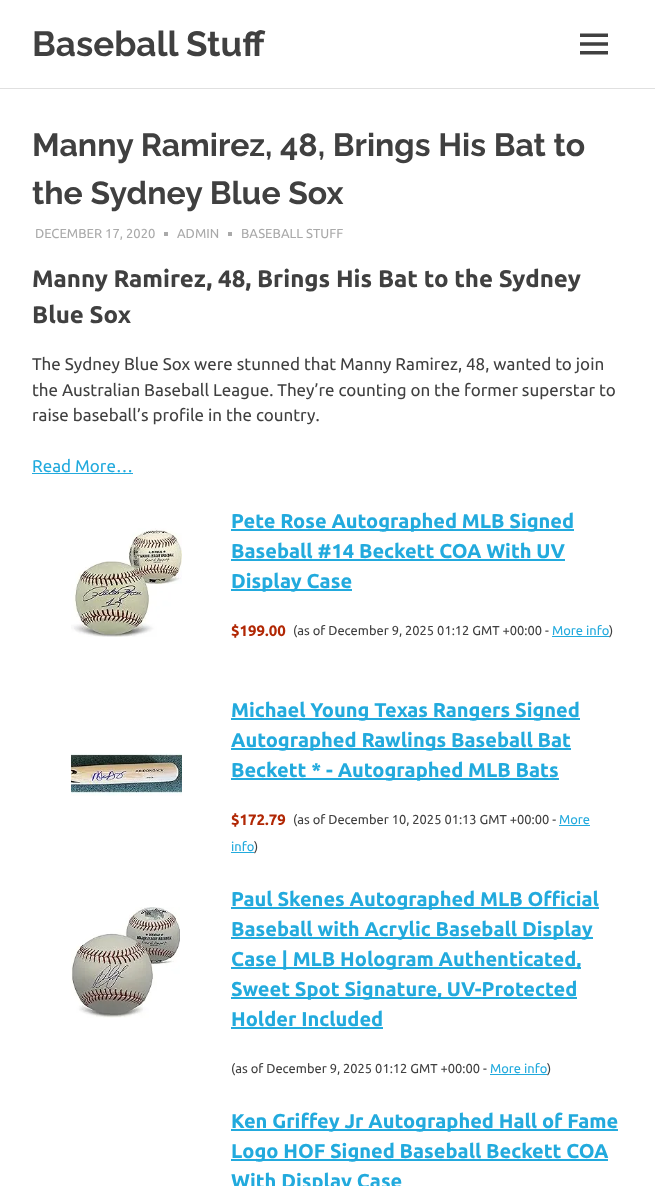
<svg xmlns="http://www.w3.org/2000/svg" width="655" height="1186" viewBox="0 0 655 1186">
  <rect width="100%" height="100%" fill="#fff"/>
  <path d="M0 88h655v1H0z" fill="#e0e0e0"/>
  <image x="580" y="33" width="28" height="22" href="img/1.png"/>
  <path d="M164 232h4v4H164z" fill="#aaa"/>
  <path d="M228 232h4v4H228z" fill="#aaa"/>
  <path d="M32 473h101v1H32z" fill="#2ad"/>
  <image x="71" y="528" width="111" height="109" href="img/2.png"/>
  <path d="M231 529h343v2H231z" fill="#2ad"/>
  <path d="M231 559h334v2H231z" fill="#2ad"/>
  <path d="M231 589h121v2H231z" fill="#2ad"/>
  <path d="M552 636h57v1H552z" fill="#2ad"/>
  <image x="71" y="753" width="111" height="43" href="img/3.png"/>
  <path d="M231 718h349v2H231z" fill="#2ad"/>
  <path d="M231 748h340v2H231z" fill="#2ad"/>
  <path d="M231 778h328v2H231z" fill="#2ad"/>
  <path d="M559 825h31v1H559z" fill="#2ad"/>
  <path d="M231 852h23v1H231z" fill="#2ad"/>
  <image x="71" y="907" width="109" height="111" href="img/4.png"/>
  <path d="M231 907h368v2H231z" fill="#2ad"/>
  <path d="M231 937h362v2H231z" fill="#2ad"/>
  <path d="M231 967h350v2H231z" fill="#2ad"/>
  <path d="M231 997h346v2H231z" fill="#2ad"/>
  <path d="M231 1027h152v2H231z" fill="#2ad"/>
  <path d="M490 1074h57v1H490z" fill="#2ad"/>
  <path d="M231 1129h387v2H231z" fill="#2ad"/>
  <path d="M231 1159h377v2H231z" fill="#2ad"/>
  <text x="32" y="56" font-family="Raleway" font-size="35" font-weight="100" fill="#404040">Baseball Stuff</text>
  <g font-family="Raleway" font-size="32" font-weight="100" fill="#404040">
    <text x="32" y="156">Manny Ramirez, 48, Brings His Bat to</text>
    <text x="32" y="204">the Sydney Blue Sox</text>
  </g>
  <g font-family="Ubuntu" font-size="13" fill="#aaa">
    <text x="35" y="238">DECEMBER 17, 2020</text>
    <text x="177" y="238">ADMIN</text>
    <text x="241" y="238">BASEBALL STUFF</text>
  </g>
  <g font-family="Ubuntu" font-size="24" font-weight="bold" fill="#404040">
    <text x="32" y="287">Manny Ramirez, 48, Brings His Bat to the Sydney</text>
    <text x="32" y="323">Blue Sox</text>
  </g>
  <g font-family="Ubuntu" font-size="17" fill="#404040">
    <text x="32" y="370">The Sydney Blue Sox were stunned that Manny Ramirez, 48, wanted to join</text>
    <text x="32" y="396">the Australian Baseball League. They’re counting on the former superstar to</text>
    <text x="32" y="421">raise baseball’s profile in the country.</text>
  </g>
  <text x="32" y="472" font-family="Ubuntu" font-size="17" fill="#2ad">Read More…</text>
  <g font-family="Ubuntu" font-size="20" font-weight="bold" fill="#2ad">
    <text x="231" y="528">Pete Rose Autographed MLB Signed</text>
    <text x="231" y="558">Baseball #14 Beckett COA With UV</text>
    <text x="231" y="588">Display Case</text>
  </g>
  <text x="231" y="636" font-family="Ubuntu" font-size="15" font-weight="bold" fill="#b12704">$199.00</text>
  <text x="293" y="635" font-family="Ubuntu" font-size="12.9" fill="#404040">(as of December 9, 2025 01:12 GMT +00:00 -</text>
  <text x="552" y="635" font-family="Ubuntu" font-size="12.9" fill="#2ad">More info</text>
  <text x="609" y="635" font-family="Ubuntu" font-size="12.9" fill="#404040">)</text>
  <g font-family="Ubuntu" font-size="20" font-weight="bold" fill="#2ad">
    <text x="231" y="717">Michael Young Texas Rangers Signed</text>
    <text x="231" y="747">Autographed Rawlings Baseball Bat</text>
    <text x="231" y="777">Beckett * - Autographed MLB Bats</text>
  </g>
  <text x="231" y="825" font-family="Ubuntu" font-size="15" font-weight="bold" fill="#b12704">$172.79</text>
  <text x="293" y="824" font-family="Ubuntu" font-size="12.9" fill="#404040">(as of December 10, 2025 01:13 GMT +00:00 -</text>
  <g font-family="Ubuntu" font-size="12.9" fill="#2ad">
    <text x="559" y="824">More</text>
    <text x="231" y="851">info</text>
  </g>
  <text x="254" y="851" font-family="Ubuntu" font-size="12.9" fill="#404040">)</text>
  <g font-family="Ubuntu" font-size="20" font-weight="bold" fill="#2ad">
    <text x="231" y="906">Paul Skenes Autographed MLB Official</text>
    <text x="231" y="936">Baseball with Acrylic Baseball Display</text>
    <text x="231" y="966">Case | MLB Hologram Authenticated,</text>
    <text x="231" y="996">Sweet Spot Signature, UV-Protected</text>
    <text x="231" y="1026">Holder Included</text>
  </g>
  <text x="231" y="1073" font-family="Ubuntu" font-size="12.9" fill="#404040">(as of December 9, 2025 01:12 GMT +00:00 -</text>
  <text x="490" y="1073" font-family="Ubuntu" font-size="12.9" fill="#2ad">More info</text>
  <text x="547" y="1073" font-family="Ubuntu" font-size="12.9" fill="#404040">)</text>
  <g font-family="Ubuntu" font-size="20" font-weight="bold" fill="#2ad">
    <text x="231" y="1128">Ken Griffey Jr Autographed Hall of Fame</text>
    <text x="231" y="1158">Logo HOF Signed Baseball Beckett COA</text>
    <text x="231" y="1188">With Display Case</text>
  </g>
</svg>
